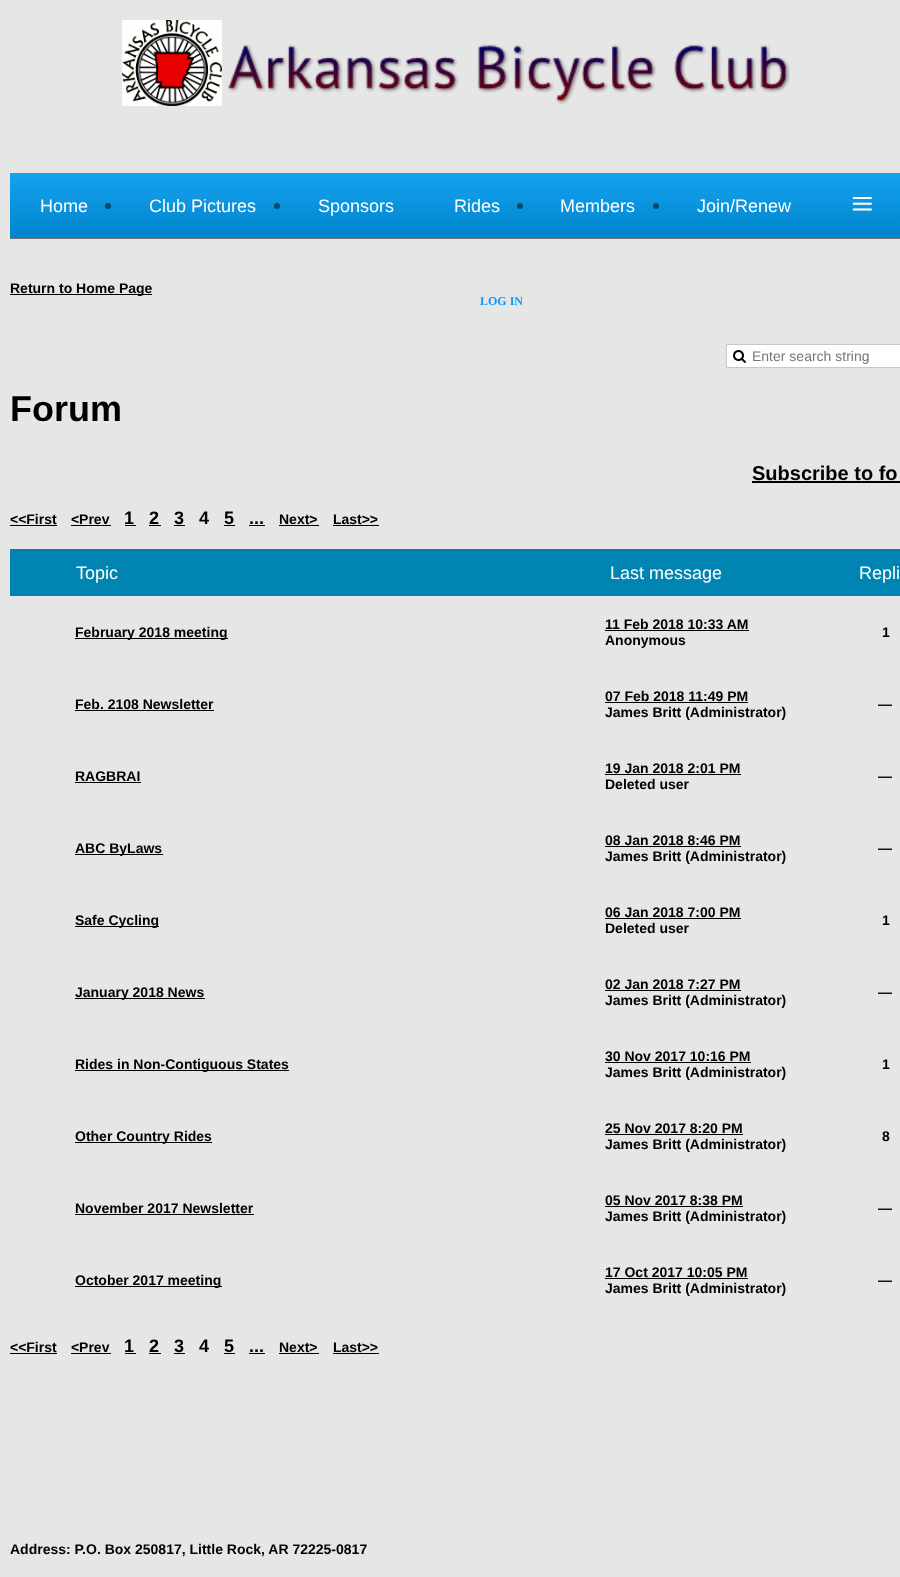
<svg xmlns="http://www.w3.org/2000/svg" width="900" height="1577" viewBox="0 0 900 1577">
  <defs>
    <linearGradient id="g1" gradientUnits="userSpaceOnUse" x1="64" y1="173" x2="64" y2="238"><stop offset="0" stop-color="#16a2ef"/><stop offset="1" stop-color="#0084cc"/></linearGradient>
    <linearGradient id="g2" gradientUnits="userSpaceOnUse" x1="203" y1="173" x2="203" y2="238"><stop offset="0" stop-color="#16a2ef"/><stop offset="1" stop-color="#0084cc"/></linearGradient>
    <linearGradient id="g3" gradientUnits="userSpaceOnUse" x1="356" y1="173" x2="356" y2="238"><stop offset="0" stop-color="#16a2ef"/><stop offset="1" stop-color="#0084cc"/></linearGradient>
    <linearGradient id="g4" gradientUnits="userSpaceOnUse" x1="477" y1="173" x2="477" y2="238"><stop offset="0" stop-color="#16a2ef"/><stop offset="1" stop-color="#0084cc"/></linearGradient>
    <linearGradient id="g5" gradientUnits="userSpaceOnUse" x1="598" y1="173" x2="598" y2="238"><stop offset="0" stop-color="#16a2ef"/><stop offset="1" stop-color="#0084cc"/></linearGradient>
    <linearGradient id="g6" gradientUnits="userSpaceOnUse" x1="744" y1="173" x2="744" y2="238"><stop offset="0" stop-color="#16a2ef"/><stop offset="1" stop-color="#0084cc"/></linearGradient>
    <linearGradient id="g7" gradientUnits="userSpaceOnUse" x1="862" y1="173" x2="862" y2="238"><stop offset="0" stop-color="#16a2ef"/><stop offset="1" stop-color="#0084cc"/></linearGradient>
  </defs>
  <rect width="100%" height="100%" fill="#e6e6e6"/>
  <image x="122" y="20" width="100" height="86" href="img/1.png"/>
  <image x="228" y="44" width="562" height="61" href="img/2.png"/>
  <path d="M10 174h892v65H10z" fill="#00000080" filter="blur(0.5px)"/>
  <path d="M10 173h108v65H10z" fill="url(#g1)"/>
  <circle cx="108" cy="206" r="3" fill="#00000080"/>
  <path d="M118 173h169v65H118z" fill="url(#g2)"/>
  <circle cx="277" cy="206" r="3" fill="#00000080"/>
  <path d="M287 173h137v65H287z" fill="url(#g3)"/>
  <path d="M424 173h106v65H424z" fill="url(#g4)"/>
  <circle cx="520" cy="206" r="3" fill="#00000080"/>
  <path d="M530 173h136v65H530z" fill="url(#g5)"/>
  <circle cx="656" cy="206" r="3" fill="#00000080"/>
  <path d="M666 173h155v65H666z" fill="url(#g6)"/>
  <path d="M821 173h79v65H821z" fill="url(#g7)"/>
  <path d="M10 294h142v1H10z" fill="#000"/>
  <path d="M726.5 344.5h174v23H726.5z" fill="#fff" stroke="#c1cbcc"/>
  <image x="733" y="350" width="13" height="13" href="img/3.png"/>
  <path d="M752 481h148v2H752z" fill="#000"/>
  <path d="M10 525h47v1H10z" fill="#000"/>
  <path d="M71 525h40v1H71z" fill="#000"/>
  <path d="M125 525h11v1H125z" fill="#000"/>
  <path d="M149 525h12v1H149z" fill="#000"/>
  <path d="M174 525h11v1H174z" fill="#000"/>
  <path d="M224 525h11v1H224z" fill="#000"/>
  <path d="M249 525h16v1H249z" fill="#000"/>
  <path d="M279 525h40v1H279z" fill="#000"/>
  <path d="M333 525h46v1H333z" fill="#000"/>
  <path d="M10 549h890v47H10z" fill="#0084b1"/>
  <path d="M75 638h153v1H75z" fill="#000"/>
  <path d="M605 630h144v1H605z" fill="#000"/>
  <path d="M75 710h139v1H75z" fill="#000"/>
  <path d="M605 702h143v1H605z" fill="#000"/>
  <path d="M75 782h66v1H75z" fill="#000"/>
  <path d="M605 774h136v1H605z" fill="#000"/>
  <path d="M75 854h88v1H75z" fill="#000"/>
  <path d="M605 846h136v1H605z" fill="#000"/>
  <path d="M75 926h84v1H75z" fill="#000"/>
  <path d="M605 918h136v1H605z" fill="#000"/>
  <path d="M75 998h130v1H75z" fill="#000"/>
  <path d="M605 990h136v1H605z" fill="#000"/>
  <path d="M75 1070h214v1H75z" fill="#000"/>
  <path d="M605 1062h146v1H605z" fill="#000"/>
  <path d="M75 1142h137v1H75z" fill="#000"/>
  <path d="M605 1134h138v1H605z" fill="#000"/>
  <path d="M75 1214h179v1H75z" fill="#000"/>
  <path d="M605 1206h138v1H605z" fill="#000"/>
  <path d="M75 1286h147v1H75z" fill="#000"/>
  <path d="M605 1278h143v1H605z" fill="#000"/>
  <path d="M10 1353h47v1H10z" fill="#000"/>
  <path d="M71 1353h40v1H71z" fill="#000"/>
  <path d="M125 1353h11v1H125z" fill="#000"/>
  <path d="M149 1353h12v1H149z" fill="#000"/>
  <path d="M174 1353h11v1H174z" fill="#000"/>
  <path d="M224 1353h11v1H224z" fill="#000"/>
  <path d="M249 1353h16v1H249z" fill="#000"/>
  <path d="M279 1353h40v1H279z" fill="#000"/>
  <path d="M333 1353h46v1H333z" fill="#000"/>
  <g font-family="Liberation Sans" font-size="18" fill="#fff">
    <text x="40" y="212">Home</text>
    <text x="149" y="212">Club Pictures</text>
    <text x="318" y="212">Sponsors</text>
    <text x="454" y="212">Rides</text>
    <text x="560" y="212">Members</text>
    <text x="697" y="212">Join/Renew</text>
  </g>
  <text x="851" y="217" font-family="Liberation Serif" font-size="40" fill="#fff">≡</text>
  <text x="10" y="293" font-family="Liberation Sans" font-size="14" font-weight="bold" fill="#000">Return to Home Page</text>
  <text x="480" y="305" font-family="Liberation Serif" font-size="12" font-weight="bold" fill="#009cff">LOG IN</text>
  <text x="752" y="361" font-family="Liberation Sans" font-size="14" fill="#757575">Enter search string</text>
  <text x="10" y="421" font-family="Liberation Sans" font-size="36" font-weight="bold" fill="#000">Forum</text>
  <text x="752" y="480" font-family="Liberation Sans" font-size="20" font-weight="bold" fill="#000">Subscribe to fo</text>
  <g font-family="Liberation Sans" font-size="14" font-weight="bold" fill="#000">
    <text x="10" y="524" word-spacing="-4">&lt;&lt; First</text>
    <text x="71" y="524" word-spacing="-4">&lt; Prev</text>
  </g>
  <g font-family="Liberation Sans" font-size="18" font-weight="bold" fill="#000">
    <text x="124" y="524">1</text>
    <text x="149" y="524">2</text>
    <text x="174" y="524">3</text>
    <text x="199" y="524">4</text>
    <text x="224" y="524">5</text>
    <text x="249" y="524">...</text>
  </g>
  <g font-family="Liberation Sans" font-size="14" font-weight="bold" fill="#000">
    <text x="279" y="524" word-spacing="-4">Next &gt;</text>
    <text x="333" y="524" word-spacing="-4">Last &gt;&gt;</text>
  </g>
  <g font-family="Liberation Sans" font-size="18" fill="#fff">
    <text x="76" y="579">Topic</text>
    <text x="610" y="579">Last message</text>
    <text x="859" y="579">Repli</text>
  </g>
  <g font-family="Liberation Sans" font-size="14" font-weight="bold" fill="#000">
    <text x="75" y="637">February 2018 meeting</text>
    <text x="605" y="629">11 Feb 2018 10:33 AM</text>
    <text x="605" y="645">Anonymous</text>
    <text x="882" y="637">1</text>
    <text x="75" y="709">Feb. 2108 Newsletter</text>
    <text x="605" y="701">07 Feb 2018 11:49 PM</text>
    <text x="605" y="717">James Britt (Administrator)</text>
    <text x="878" y="709">—</text>
    <text x="75" y="781">RAGBRAI</text>
    <text x="605" y="773">19 Jan 2018 2:01 PM</text>
    <text x="605" y="789">Deleted user</text>
    <text x="878" y="781">—</text>
    <text x="75" y="853">ABC ByLaws</text>
    <text x="605" y="845">08 Jan 2018 8:46 PM</text>
    <text x="605" y="861">James Britt (Administrator)</text>
    <text x="878" y="853">—</text>
    <text x="75" y="925">Safe Cycling</text>
    <text x="605" y="917">06 Jan 2018 7:00 PM</text>
    <text x="605" y="933">Deleted user</text>
    <text x="882" y="925">1</text>
    <text x="75" y="997">January 2018 News</text>
    <text x="605" y="989">02 Jan 2018 7:27 PM</text>
    <text x="605" y="1005">James Britt (Administrator)</text>
    <text x="878" y="997">—</text>
    <text x="75" y="1069">Rides in Non-Contiguous States</text>
    <text x="605" y="1061">30 Nov 2017 10:16 PM</text>
    <text x="605" y="1077">James Britt (Administrator)</text>
    <text x="882" y="1069">1</text>
    <text x="75" y="1141">Other Country Rides</text>
    <text x="605" y="1133">25 Nov 2017 8:20 PM</text>
    <text x="605" y="1149">James Britt (Administrator)</text>
    <text x="882" y="1141">8</text>
    <text x="75" y="1213">November 2017 Newsletter</text>
    <text x="605" y="1205">05 Nov 2017 8:38 PM</text>
    <text x="605" y="1221">James Britt (Administrator)</text>
    <text x="878" y="1213">—</text>
    <text x="75" y="1285">October 2017 meeting</text>
    <text x="605" y="1277">17 Oct 2017 10:05 PM</text>
    <text x="605" y="1293">James Britt (Administrator)</text>
    <text x="878" y="1285">—</text>
    <text x="10" y="1352" word-spacing="-4">&lt;&lt; First</text>
    <text x="71" y="1352" word-spacing="-4">&lt; Prev</text>
  </g>
  <g font-family="Liberation Sans" font-size="18" font-weight="bold" fill="#000">
    <text x="124" y="1352">1</text>
    <text x="149" y="1352">2</text>
    <text x="174" y="1352">3</text>
    <text x="199" y="1352">4</text>
    <text x="224" y="1352">5</text>
    <text x="249" y="1352">...</text>
  </g>
  <g font-family="Liberation Sans" font-size="14" font-weight="bold" fill="#000">
    <text x="279" y="1352" word-spacing="-4">Next &gt;</text>
    <text x="333" y="1352" word-spacing="-4">Last &gt;&gt;</text>
    <text x="10" y="1554">Address: P.O. Box 250817, Little Rock, AR 72225-0817</text>
  </g>
</svg>
